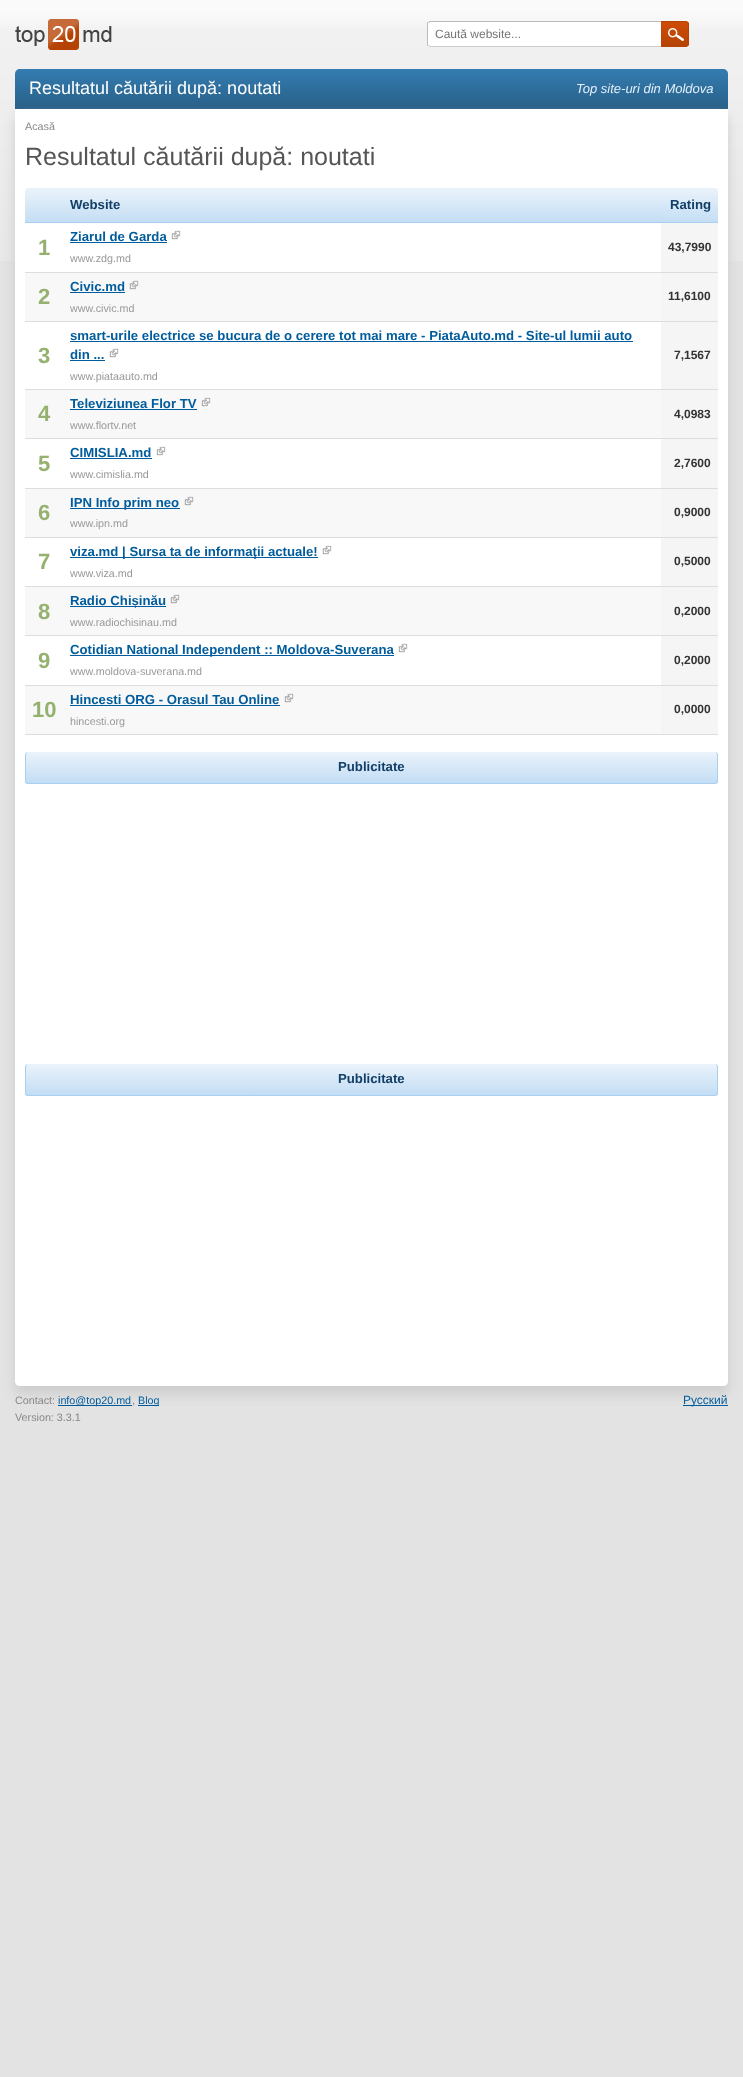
<svg xmlns="http://www.w3.org/2000/svg" width="743" height="2077" viewBox="0 0 743 2077">
  <defs>
    <clipPath id="clip1"><path d="M661 21H686C687.5 21 689 22.5 689 24V44C689 45.5 687.5 47 686 47H661Z"/></clipPath>
    <linearGradient id="g1" gradientUnits="userSpaceOnUse" x1="675" y1="22" x2="675" y2="46"><stop offset="0" stop-color="#ce4c05"/><stop offset="1" stop-color="#b54304"/></linearGradient>
    <linearGradient id="g2" gradientUnits="userSpaceOnUse" x1="372" y1="69" x2="372" y2="109"><stop offset="0" stop-color="#347cb0"/><stop offset="1" stop-color="#286088"/></linearGradient>
    <linearGradient id="g3" gradientUnits="userSpaceOnUse" x1="372" y1="188" x2="372" y2="223"><stop offset="0" stop-color="#eaf3fb"/><stop offset="1" stop-color="#c3ddf4"/></linearGradient>
    <clipPath id="clip2"><rect x="25" y="752" width="693" height="32" rx="3"/></clipPath>
    <linearGradient id="g4" gradientUnits="userSpaceOnUse" x1="372" y1="752" x2="372" y2="783"><stop offset="0" stop-color="#eaf3fb"/><stop offset="1" stop-color="#c3ddf4"/></linearGradient>
    <clipPath id="clip3"><rect x="25" y="1064" width="693" height="32" rx="3"/></clipPath>
    <linearGradient id="g5" gradientUnits="userSpaceOnUse" x1="372" y1="1064" x2="372" y2="1095"><stop offset="0" stop-color="#eaf3fb"/><stop offset="1" stop-color="#c3ddf4"/></linearGradient>
  </defs>
  <rect width="100%" height="100%" fill="#e3e3e3"/>
  <image x="0" y="0" width="743" height="261" href="img/1.png"/>
  <image x="15" y="19" width="97" height="31" href="img/2.png"/>
  <rect x="427" y="21" width="260" height="26" rx="3" fill="#fff"/>
  <path d="M430 21L428 22L429 23L430 22H684C686 22 687 23 687 24C687 22 686 21 684 21Z" fill="#bbb"/>
  <path d="M430 47H685L687 46V44C687 45 686 46 684 46H430L429 45L428 46Z" fill="#ccc"/>
  <path d="M427 24V44C427 45 427 46 428 46L428.5 45.5C428 45 428 44.5 428 44V24C428 23.5 428 23 428.5 22.5L428 22C427 22 427 23 427 24Z" fill="#bbb"/>
  <g clip-path="url(#clip1)">
    <path d="M661 22h28v24H661z" fill="url(#g1)"/>
  </g>
  <path d="M661 21H686C687.5 21 689 22.5 689 24V44C689 45.5 687.5 47 686 47H661ZM661 22H686C687 22 688 23 688 24V44C688 45 687 46 686 46H661Z" fill="#b54304" fill-rule="evenodd"/>
  <image x="668" y="28" width="16" height="13" href="img/3.png"/>
  <path d="M20 69H723C726 69 728 71 728 74V109H15V74C15 71 17 69 20 69Z" fill="url(#g2)"/>
  <rect x="15" y="117" width="713" height="1277" rx="5" fill="#ccc" filter="blur(6px)"/>
  <path d="M15 109H728V1381C728 1384 726 1386 723 1386H20C17 1386 15 1384 15 1381Z" fill="#fff"/>
  <path d="M28 188H715C716.5 188 718 189.5 718 191V223H25V191C25 189.5 26.5 188 28 188Z" fill="url(#g3)"/>
  <path d="M25 222h693v1H25z" fill="#a9cff0"/>
  <path d="M70 242h97v1H70z" fill="#005c9c"/>
  <image x="171" y="230" width="10" height="10" href="img/4.png"/>
  <path d="M661 223h57v49H661z" fill="#f5f5f5"/>
  <path d="M25 272h693v1H25z" fill="#ddd"/>
  <path d="M25 273h636v48H25z" fill="#f8f8f8"/>
  <path d="M70 292h55v1H70z" fill="#005c9c"/>
  <image x="129" y="280" width="10" height="10" href="img/5.png"/>
  <path d="M661 273h57v48H661z" fill="#f5f5f5"/>
  <path d="M25 321h693v1H25z" fill="#ddd"/>
  <path d="M70 341h563v1H70z" fill="#005c9c"/>
  <path d="M70 360h35v1H70z" fill="#005c9c"/>
  <image x="109" y="348" width="10" height="10" href="img/4.png"/>
  <path d="M661 322h57v67H661z" fill="#f5f5f5"/>
  <path d="M25 389h693v1H25z" fill="#ddd"/>
  <path d="M25 390h636v48H25z" fill="#f8f8f8"/>
  <path d="M70 409h127v1H70z" fill="#005c9c"/>
  <image x="201" y="397" width="10" height="10" href="img/5.png"/>
  <path d="M661 390h57v48H661z" fill="#f5f5f5"/>
  <path d="M25 438h693v1H25z" fill="#ddd"/>
  <path d="M70 458h82v1H70z" fill="#005c9c"/>
  <image x="156" y="446" width="10" height="10" href="img/4.png"/>
  <path d="M661 439h57v49H661z" fill="#f5f5f5"/>
  <path d="M25 488h693v1H25z" fill="#ddd"/>
  <path d="M25 489h636v48H25z" fill="#f8f8f8"/>
  <path d="M70 508h110v1H70z" fill="#005c9c"/>
  <image x="184" y="496" width="10" height="10" href="img/5.png"/>
  <path d="M661 489h57v48H661z" fill="#f5f5f5"/>
  <path d="M25 537h693v1H25z" fill="#ddd"/>
  <path d="M70 557h248v1H70z" fill="#005c9c"/>
  <image x="322" y="545" width="10" height="10" href="img/4.png"/>
  <path d="M661 538h57v48H661z" fill="#f5f5f5"/>
  <path d="M25 586h693v1H25z" fill="#ddd"/>
  <path d="M25 587h636v48H25z" fill="#f8f8f8"/>
  <path d="M70 606h96v1H70z" fill="#005c9c"/>
  <image x="170" y="594" width="10" height="10" href="img/5.png"/>
  <path d="M661 587h57v48H661z" fill="#f5f5f5"/>
  <path d="M25 635h693v1H25z" fill="#ddd"/>
  <path d="M70 655h324v1H70z" fill="#005c9c"/>
  <image x="398" y="643" width="10" height="10" href="img/4.png"/>
  <path d="M661 636h57v49H661z" fill="#f5f5f5"/>
  <path d="M25 685h693v1H25z" fill="#ddd"/>
  <path d="M25 686h636v48H25z" fill="#f8f8f8"/>
  <path d="M70 705h210v1H70z" fill="#005c9c"/>
  <image x="284" y="693" width="10" height="10" href="img/5.png"/>
  <path d="M661 686h57v48H661z" fill="#f5f5f5"/>
  <path d="M25 734h693v1H25z" fill="#ddd"/>
  <g clip-path="url(#clip2)">
    <path d="M28 752H715C716.5 752 718 753.5 718 755V783H25V755C25 753.5 26.5 752 28 752Z" fill="url(#g4)"/>
  </g>
  <path d="M28 752H715C717 752 718 753 718 755V781C718 783 717 784 715 784H28C26 784 25 783 25 781V755C25 753 26 752 28 752ZM28 752H715C716 752 717 753 717 755V781C717 782 716 783 715 783H28C27 783 26 782 26 781V755C26 753 27 752 28 752Z" fill="#a9cff0" fill-rule="evenodd"/>
  <g clip-path="url(#clip3)">
    <path d="M28 1064H715C716.5 1064 718 1065.5 718 1067V1095H25V1067C25 1065.5 26.5 1064 28 1064Z" fill="url(#g5)"/>
  </g>
  <path d="M28 1064H715C717 1064 718 1065 718 1067V1093C718 1095 717 1096 715 1096H28C26 1096 25 1095 25 1093V1067C25 1065 26 1064 28 1064ZM28 1064H715C716 1064 717 1065 717 1067V1093C717 1094 716 1095 715 1095H28C27 1095 26 1094 26 1093V1067C26 1065 27 1064 28 1064Z" fill="#a9cff0" fill-rule="evenodd"/>
  <path d="M58 1405h74v1H58z" fill="#005c9c"/>
  <path d="M138 1405h21v1H138z" fill="#005c9c"/>
  <path d="M683 1405h45v1H683z" fill="#005c9c"/>
  <text x="435" y="38" font-family="Liberation Sans" font-size="12" fill="#757575">Caută website...</text>
  <text x="29" y="94" font-family="Liberation Sans" font-size="18" fill="#fff">Resultatul căutării după: noutati</text>
  <text x="576" y="93" font-family="Liberation Sans" font-size="13" font-style="italic" fill="#e3effa">Top site-uri din Moldova</text>
  <text x="25" y="130" font-family="Liberation Sans" font-size="10.75" fill="#888">Acasă</text>
  <text x="25" y="165" font-family="Liberation Sans" font-size="25" fill="#555">Resultatul căutării după: noutati</text>
  <g font-family="Liberation Sans" font-size="13.2" font-weight="bold" fill="#123e67">
    <text x="70" y="209">Website</text>
    <text x="670" y="209">Rating</text>
  </g>
  <text x="38" y="255" font-family="Liberation Sans" font-size="22" font-weight="bold" fill="#95b16f">1</text>
  <text x="70" y="241" font-family="Liberation Sans" font-size="13.2" font-weight="bold" fill="#005c9c">Ziarul de Garda</text>
  <text x="70" y="262" font-family="Liberation Sans" font-size="10.75" fill="#999">www.zdg.md</text>
  <text x="668" y="251" font-family="Liberation Sans" font-size="12" font-weight="bold" fill="#333">43,7990</text>
  <text x="38" y="304" font-family="Liberation Sans" font-size="22" font-weight="bold" fill="#95b16f">2</text>
  <text x="70" y="291" font-family="Liberation Sans" font-size="13.2" font-weight="bold" fill="#005c9c">Civic.md</text>
  <text x="70" y="312" font-family="Liberation Sans" font-size="10.75" fill="#999">www.civic.md</text>
  <text x="668" y="300" font-family="Liberation Sans" font-size="12" font-weight="bold" fill="#333">11,6100</text>
  <text x="38" y="363" font-family="Liberation Sans" font-size="22" font-weight="bold" fill="#95b16f">3</text>
  <g font-family="Liberation Sans" font-size="13.2" font-weight="bold" fill="#005c9c">
    <text x="70" y="340">smart-urile electrice se bucura de o cerere tot mai mare - PiataAuto.md - Site-ul lumii auto</text>
    <text x="70" y="359">din ...</text>
  </g>
  <text x="70" y="380" font-family="Liberation Sans" font-size="10.75" fill="#999">www.piataauto.md</text>
  <text x="674" y="359" font-family="Liberation Sans" font-size="12" font-weight="bold" fill="#333">7,1567</text>
  <text x="38" y="421" font-family="Liberation Sans" font-size="22" font-weight="bold" fill="#95b16f">4</text>
  <text x="70" y="408" font-family="Liberation Sans" font-size="13.2" font-weight="bold" fill="#005c9c">Televiziunea Flor TV</text>
  <text x="70" y="429" font-family="Liberation Sans" font-size="10.75" fill="#999">www.flortv.net</text>
  <text x="674" y="418" font-family="Liberation Sans" font-size="12" font-weight="bold" fill="#333">4,0983</text>
  <text x="38" y="471" font-family="Liberation Sans" font-size="22" font-weight="bold" fill="#95b16f">5</text>
  <text x="70" y="457" font-family="Liberation Sans" font-size="13.2" font-weight="bold" fill="#005c9c">CIMISLIA.md</text>
  <text x="70" y="478" font-family="Liberation Sans" font-size="10.75" fill="#999">www.cimislia.md</text>
  <text x="674" y="467" font-family="Liberation Sans" font-size="12" font-weight="bold" fill="#333">2,7600</text>
  <text x="38" y="520" font-family="Liberation Sans" font-size="22" font-weight="bold" fill="#95b16f">6</text>
  <text x="70" y="507" font-family="Liberation Sans" font-size="13.2" font-weight="bold" fill="#005c9c">IPN Info prim neo</text>
  <text x="70" y="527" font-family="Liberation Sans" font-size="10.75" fill="#999">www.ipn.md</text>
  <text x="674" y="516" font-family="Liberation Sans" font-size="12" font-weight="bold" fill="#333">0,9000</text>
  <text x="38" y="569" font-family="Liberation Sans" font-size="22" font-weight="bold" fill="#95b16f">7</text>
  <text x="70" y="556" font-family="Liberation Sans" font-size="13.2" font-weight="bold" fill="#005c9c">viza.md | Sursa ta de informaţii actuale!</text>
  <text x="70" y="577" font-family="Liberation Sans" font-size="10.75" fill="#999">www.viza.md</text>
  <text x="674" y="565" font-family="Liberation Sans" font-size="12" font-weight="bold" fill="#333">0,5000</text>
  <text x="38" y="619" font-family="Liberation Sans" font-size="22" font-weight="bold" fill="#95b16f">8</text>
  <text x="70" y="605" font-family="Liberation Sans" font-size="13.2" font-weight="bold" fill="#005c9c">Radio Chișinău</text>
  <text x="70" y="626" font-family="Liberation Sans" font-size="10.75" fill="#999">www.radiochisinau.md</text>
  <text x="674" y="615" font-family="Liberation Sans" font-size="12" font-weight="bold" fill="#333">0,2000</text>
  <text x="38" y="668" font-family="Liberation Sans" font-size="22" font-weight="bold" fill="#95b16f">9</text>
  <text x="70" y="654" font-family="Liberation Sans" font-size="13.2" font-weight="bold" fill="#005c9c">Cotidian National Independent :: Moldova-Suverana</text>
  <text x="70" y="675" font-family="Liberation Sans" font-size="10.75" fill="#999">www.moldova-suverana.md</text>
  <text x="674" y="664" font-family="Liberation Sans" font-size="12" font-weight="bold" fill="#333">0,2000</text>
  <text x="32" y="717" font-family="Liberation Sans" font-size="22" font-weight="bold" fill="#95b16f">10</text>
  <text x="70" y="704" font-family="Liberation Sans" font-size="13.2" font-weight="bold" fill="#005c9c">Hincesti ORG - Orasul Tau Online</text>
  <text x="70" y="725" font-family="Liberation Sans" font-size="10.75" fill="#999">hincesti.org</text>
  <text x="674" y="713" font-family="Liberation Sans" font-size="12" font-weight="bold" fill="#333">0,0000</text>
  <g font-family="Liberation Sans" font-size="13.2" font-weight="bold" fill="#123e67">
    <text x="338" y="771">Publicitate</text>
    <text x="338" y="1083">Publicitate</text>
  </g>
  <text x="15" y="1404" font-family="Liberation Sans" font-size="10.75" fill="#888">Contact:</text>
  <text x="58" y="1404" font-family="Liberation Sans" font-size="10.75" fill="#005c9c">info@top20.md</text>
  <text x="132" y="1404" font-family="Liberation Sans" font-size="10.75" fill="#888">,</text>
  <text x="138" y="1404" font-family="Liberation Sans" font-size="10.75" fill="#005c9c">Blog</text>
  <text x="15" y="1421" font-family="Liberation Sans" font-size="10.75" fill="#888">Version: 3.3.1</text>
  <text x="683" y="1404" font-family="Liberation Sans" font-size="12" fill="#005c9c">Русский</text>
</svg>
